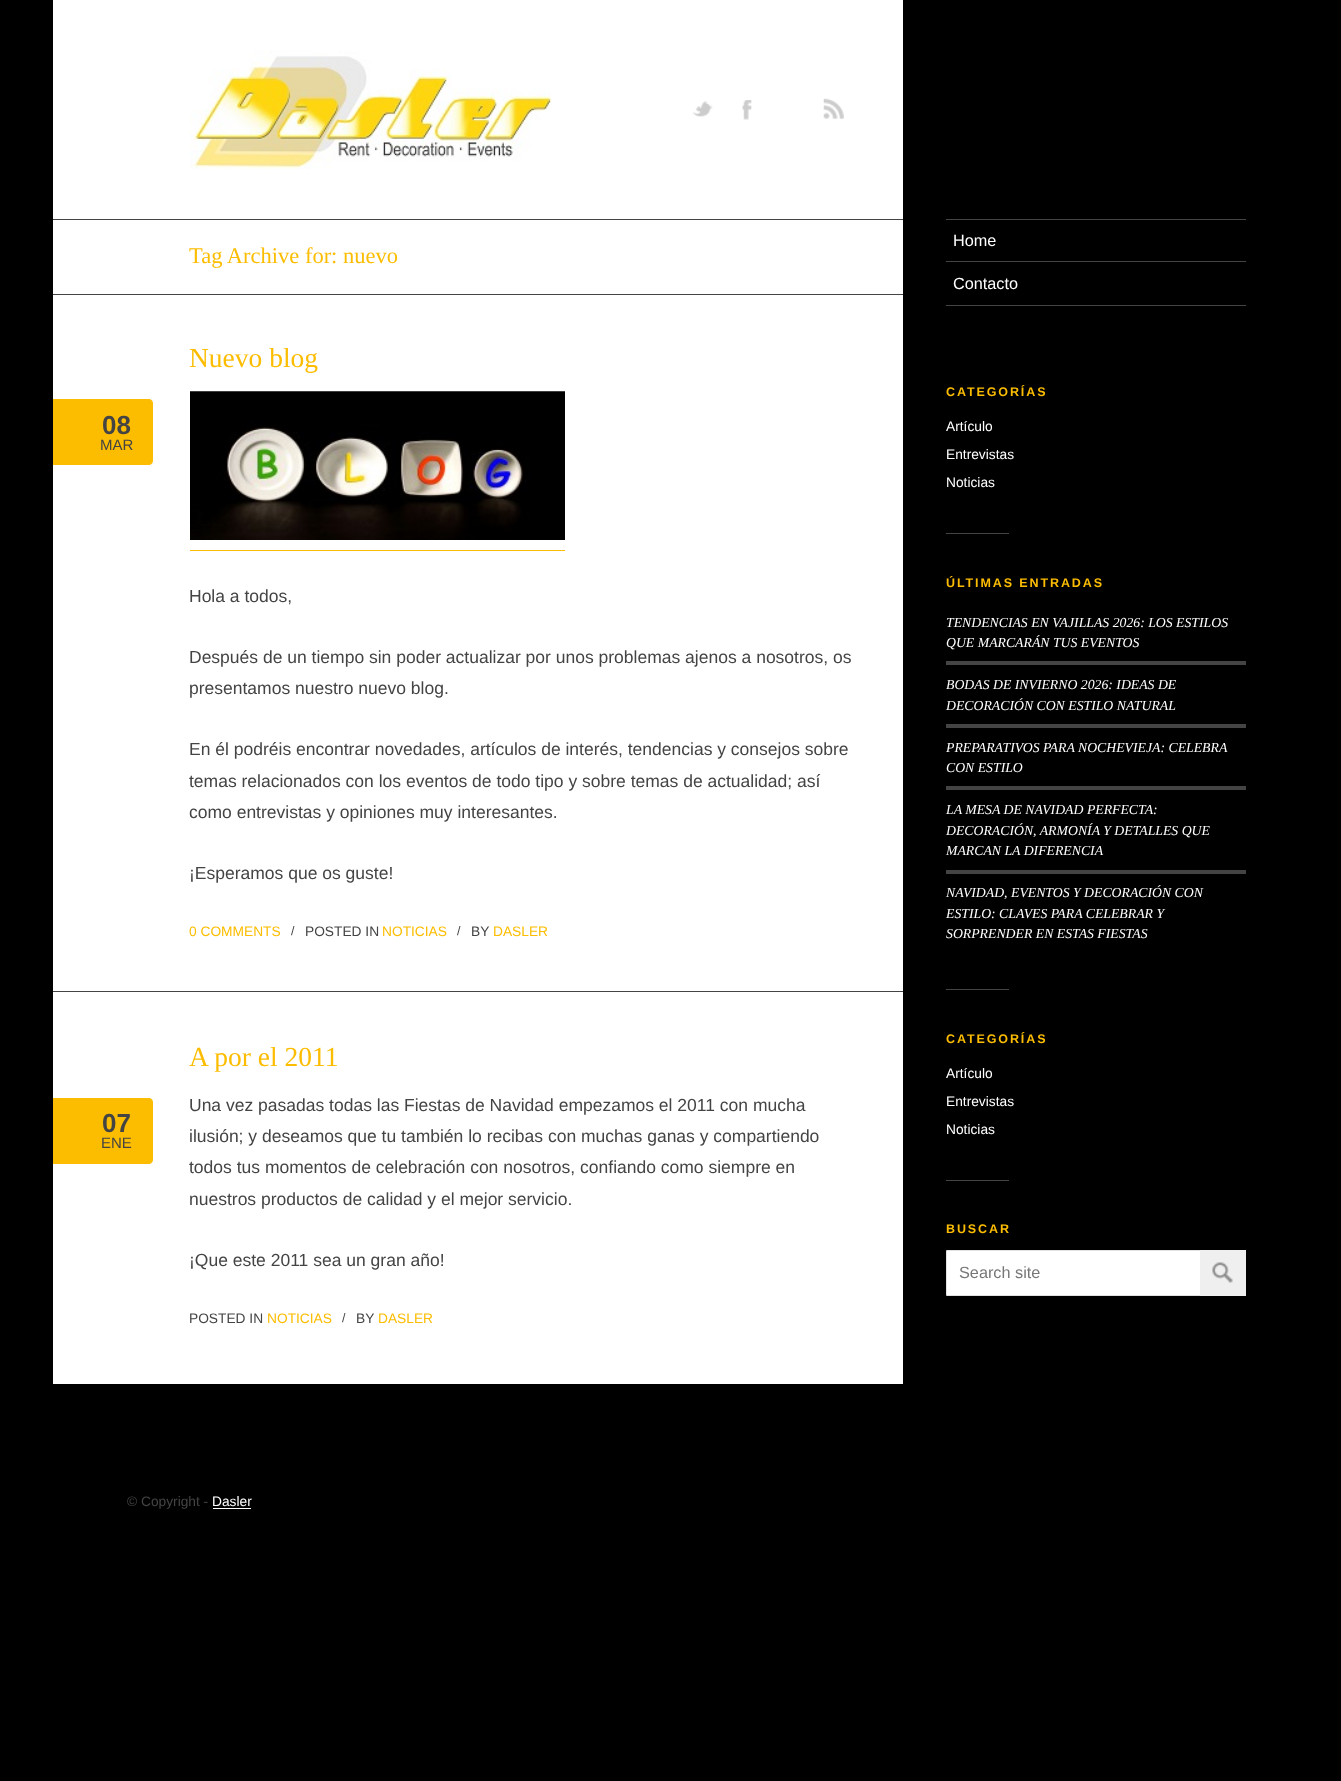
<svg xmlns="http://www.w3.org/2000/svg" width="1341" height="1781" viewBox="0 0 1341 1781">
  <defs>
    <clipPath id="clip1"><path d="M946 1181h300v153H946z"/></clipPath>
  </defs>
  <rect width="100%" height="100%" fill="#000"/>
  <path d="M53 0h850v1384H53z" fill="#fff"/>
  <image x="190" y="50" width="362" height="119" href="img/1.png"/>
  <image x="692" y="101" width="21" height="16" href="img/2.png"/>
  <image x="742" y="100" width="10" height="20" href="img/3.png"/>
  <image x="823" y="98" width="21" height="21" href="img/4.png"/>
  <path d="M53 219h850v1H53z" fill="#444"/>
  <path d="M53 294h850v1H53z" fill="#444"/>
  <path d="M53 399H149C151 399 153 401 153 403V461C153 463 151 465 149 465H53Z" fill="#fcbd00"/>
  <path d="M190 550h375v1H190z" fill="#fcbd00"/>
  <image x="190" y="391" width="375" height="149" href="img/5.png"/>
  <path d="M53 991h850v1H53z" fill="#444"/>
  <path d="M53 1098H149C151 1098 153 1100 153 1102V1160C153 1162 151 1164 149 1164H53Z" fill="#fcbd00"/>
  <path d="M946 219h300v1H946z" fill="#444"/>
  <path d="M946 261h300v1H946z" fill="#444"/>
  <path d="M946 305h300v1H946z" fill="#444"/>
  <path d="M946 533h63v1H946z" fill="#444"/>
  <path d="M946 661h300v4H946z" fill="#444"/>
  <path d="M946 724h300v4H946z" fill="#444"/>
  <path d="M946 786h300v4H946z" fill="#444"/>
  <path d="M946 870h300v4H946z" fill="#444"/>
  <path d="M946 989h63v1H946z" fill="#444"/>
  <path d="M946 1180h63v1H946z" fill="#444"/>
  <path d="M947 1251h253v44H947z" fill="#fff"/>
  <g clip-path="url(#clip1)">
    <path d="M946.5 1250.5h339v45H946.5z" fill="none" stroke="#e1e1e1"/>
  </g>
  <path d="M1200 1250h46v46H1200z" fill="#efefef"/>
  <image x="1212" y="1262" width="21" height="21" href="img/6.png"/>
  <path d="M213 1508h38v1H213z" fill="#fff"/>
  <text x="189" y="263" font-family="Liberation Serif" font-size="22.5" fill="#fcbd00">Tag Archive for: nuevo</text>
  <text x="189" y="367" font-family="Liberation Serif" font-size="27.5" fill="#fcbd00">Nuevo blog</text>
  <text x="102" y="434" font-family="Liberation Sans" font-size="26" font-weight="bold" fill="#444">08</text>
  <text x="100" y="450" font-family="Liberation Sans" font-size="15" fill="#444">MAR</text>
  <g font-family="Liberation Sans" font-size="17.5" fill="#444">
    <text x="189" y="602">Hola a todos,</text>
    <text x="189" y="663">Después de un tiempo sin poder actualizar por unos problemas ajenos a nosotros, os</text>
    <text x="189" y="694">presentamos nuestro nuevo blog.</text>
    <text x="189" y="755">En él podréis encontrar novedades, artículos de interés, tendencias y consejos sobre</text>
    <text x="189" y="787">temas relacionados con los eventos de todo tipo y sobre temas de actualidad; así</text>
    <text x="189" y="818">como entrevistas y opiniones muy interesantes.</text>
    <text x="189" y="879">¡Esperamos que os guste!</text>
  </g>
  <text x="189" y="936" font-family="Liberation Sans" font-size="13.75" fill="#fcbd00">0 COMMENTS</text>
  <text x="291" y="935" font-family="Liberation Sans" font-size="12.5" fill="#444">/</text>
  <text x="305" y="936" font-family="Liberation Sans" font-size="13.75" fill="#444">POSTED IN</text>
  <text x="382" y="936" font-family="Liberation Sans" font-size="13.75" fill="#fcbd00">NOTICIAS</text>
  <text x="457" y="935" font-family="Liberation Sans" font-size="12.5" fill="#444">/</text>
  <text x="471" y="936" font-family="Liberation Sans" font-size="13.75" fill="#444">BY</text>
  <text x="493" y="936" font-family="Liberation Sans" font-size="13.75" fill="#fcbd00">DASLER</text>
  <text x="189" y="1066" font-family="Liberation Serif" font-size="27.5" fill="#fcbd00">A por el 2011</text>
  <text x="102" y="1132" font-family="Liberation Sans" font-size="26" font-weight="bold" fill="#444">07</text>
  <text x="101" y="1148" font-family="Liberation Sans" font-size="15" fill="#444">ENE</text>
  <g font-family="Liberation Sans" font-size="17.5" fill="#444">
    <text x="189" y="1111">Una vez pasadas todas las Fiestas de Navidad empezamos el 2011 con mucha</text>
    <text x="189" y="1142">ilusión; y deseamos que tu también lo recibas con muchas ganas y compartiendo</text>
    <text x="189" y="1173">todos tus momentos de celebración con nosotros, confiando como siempre en</text>
    <text x="189" y="1205">nuestros productos de calidad y el mejor servicio.</text>
    <text x="189" y="1266">¡Que este 2011 sea un gran año!</text>
  </g>
  <text x="189" y="1323" font-family="Liberation Sans" font-size="13.75" fill="#444">POSTED IN</text>
  <text x="267" y="1323" font-family="Liberation Sans" font-size="13.75" fill="#fcbd00">NOTICIAS</text>
  <text x="342" y="1322" font-family="Liberation Sans" font-size="12.5" fill="#444">/</text>
  <text x="356" y="1323" font-family="Liberation Sans" font-size="13.75" fill="#444">BY</text>
  <text x="378" y="1323" font-family="Liberation Sans" font-size="13.75" fill="#fcbd00">DASLER</text>
  <g font-family="Liberation Sans" font-size="16.25" fill="#fff">
    <text x="953" y="246">Home</text>
    <text x="953" y="289">Contacto</text>
  </g>
  <text x="946" y="396" font-family="Liberation Sans" font-size="12.5" font-weight="bold" letter-spacing="1.9" fill="#fcbd00">CATEGORÍAS</text>
  <g font-family="Liberation Sans" font-size="13.75" fill="#fff">
    <text x="946" y="431">Artículo</text>
    <text x="946" y="459">Entrevistas</text>
    <text x="946" y="487">Noticias</text>
  </g>
  <text x="946" y="587" font-family="Liberation Sans" font-size="12.5" font-weight="bold" letter-spacing="1.9" fill="#fcbd00">ÚLTIMAS ENTRADAS</text>
  <g font-family="Liberation Serif" font-size="13.75" font-style="italic" fill="#fff">
    <text x="946" y="627">TENDENCIAS EN VAJILLAS 2026: LOS ESTILOS</text>
    <text x="946" y="647">QUE MARCARÁN TUS EVENTOS</text>
    <text x="946" y="689">BODAS DE INVIERNO 2026: IDEAS DE</text>
    <text x="946" y="710">DECORACIÓN CON ESTILO NATURAL</text>
    <text x="946" y="752">PREPARATIVOS PARA NOCHEVIEJA: CELEBRA</text>
    <text x="946" y="772">CON ESTILO</text>
    <text x="946" y="814">LA MESA DE NAVIDAD PERFECTA:</text>
    <text x="946" y="835">DECORACIÓN, ARMONÍA Y DETALLES QUE</text>
    <text x="946" y="855">MARCAN LA DIFERENCIA</text>
    <text x="946" y="897">NAVIDAD, EVENTOS Y DECORACIÓN CON</text>
    <text x="946" y="918">ESTILO: CLAVES PARA CELEBRAR Y</text>
    <text x="946" y="938">SORPRENDER EN ESTAS FIESTAS</text>
  </g>
  <text x="946" y="1043" font-family="Liberation Sans" font-size="12.5" font-weight="bold" letter-spacing="1.9" fill="#fcbd00">CATEGORÍAS</text>
  <g font-family="Liberation Sans" font-size="13.75" fill="#fff">
    <text x="946" y="1078">Artículo</text>
    <text x="946" y="1106">Entrevistas</text>
    <text x="946" y="1134">Noticias</text>
  </g>
  <text x="946" y="1233" font-family="Liberation Sans" font-size="12.5" font-weight="bold" letter-spacing="1.9" fill="#fcbd00">BUSCAR</text>
  <text x="959" y="1278" font-family="Liberation Sans" font-size="16.25" fill="#777">Search site</text>
  <text x="127" y="1506" font-family="Liberation Sans" font-size="13.75" fill="#444">© Copyright -</text>
  <text x="212" y="1506" font-family="Liberation Sans" font-size="13.75" fill="#fff">Dasler</text>
</svg>
